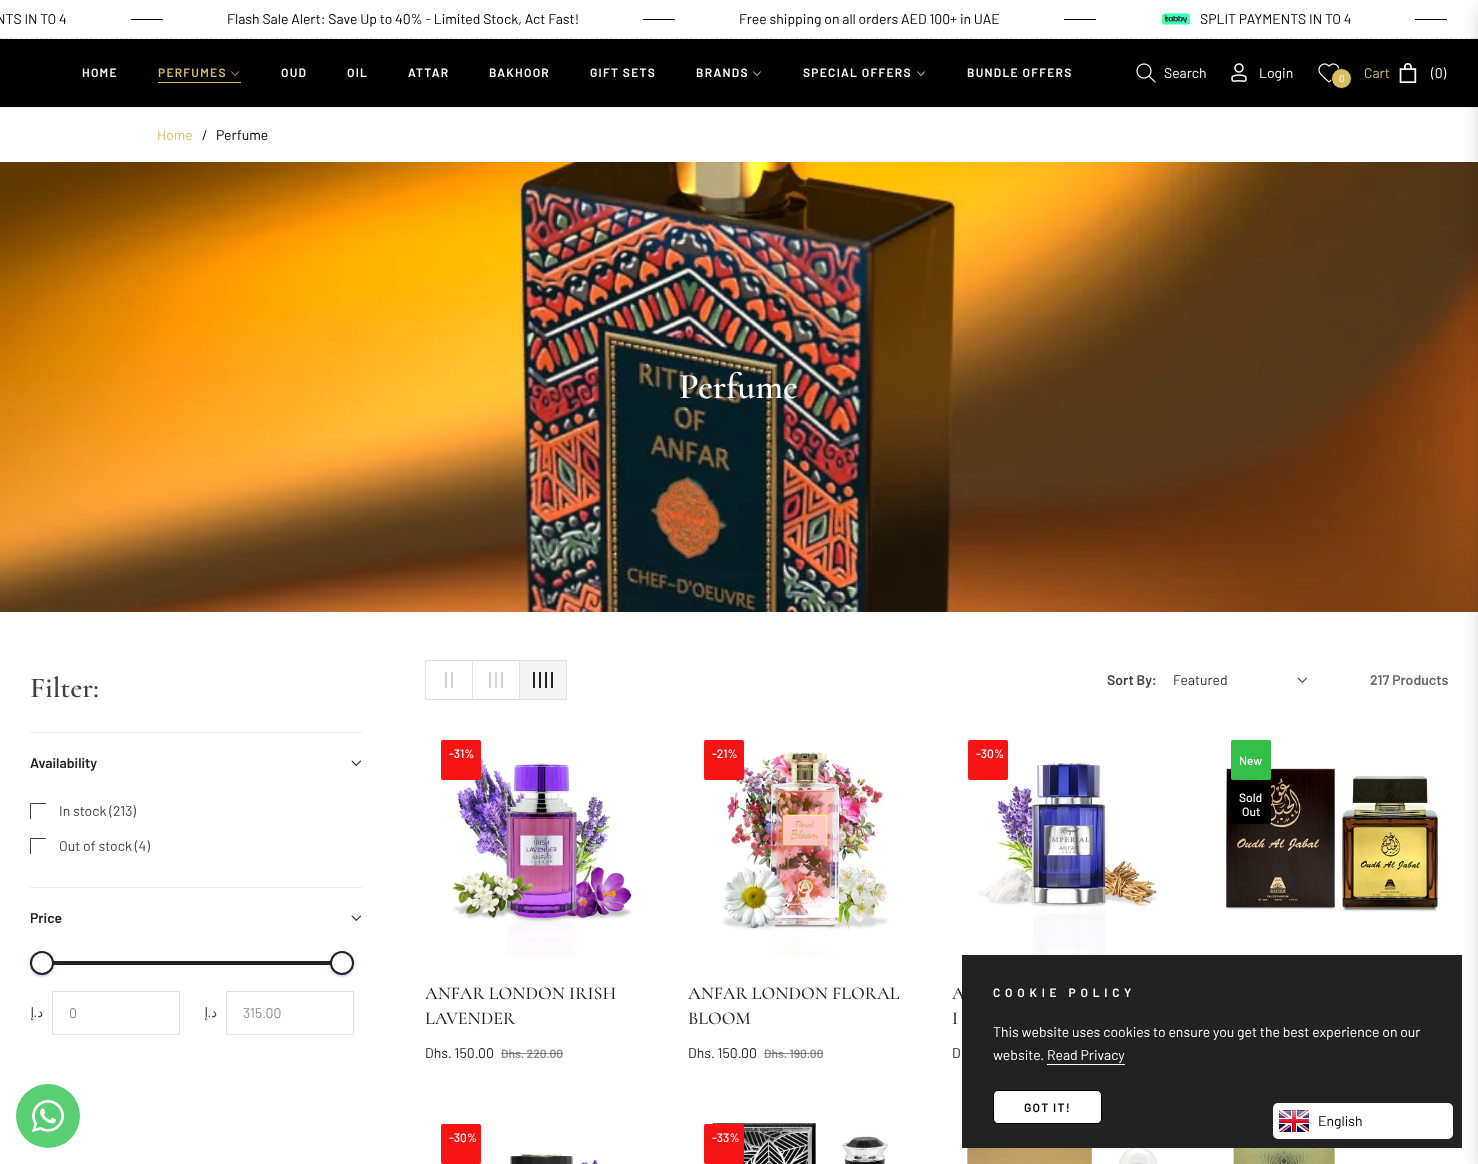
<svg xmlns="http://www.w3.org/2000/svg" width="1478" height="1164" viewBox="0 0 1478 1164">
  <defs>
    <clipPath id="clip1"><path d="M30 803h16v16H30z"/></clipPath>
    <clipPath id="clip2"><path d="M30 838h16v16H30z"/></clipPath>
  </defs>
  <rect width="100%" height="100%" fill="#fff"/>
  <path d="M0 38.5H1478" fill="none" stroke="#e1e1e1" stroke-dasharray="3 2"/>
  <path d="M131 19h32v1H131z" fill="#000"/>
  <path d="M643 19h32v1H643z" fill="#000"/>
  <path d="M1064 19h32v1H1064z" fill="#000"/>
  <image x="1162" y="13" width="28" height="12" href="img/1.png"/>
  <path d="M1415 19h32v1H1415z" fill="#000"/>
  <path d="M0 39h1478v68H0z" fill="#000"/>
  <image x="231" y="71" width="8" height="5" href="img/2.png"/>
  <path d="M158 82h83v1H158z" fill="#d9bf61"/>
  <image x="753" y="71" width="8" height="5" href="img/3.png"/>
  <image x="917" y="71" width="8" height="5" href="img/3.png"/>
  <image x="1136" y="63" width="20" height="20" href="img/4.png"/>
  <image x="1231" y="63" width="16" height="19" href="img/5.png"/>
  <image x="1318" y="63" width="22" height="20" href="img/6.png"/>
  <circle cx="1341.5" cy="78.5" r="10" fill="#d9bf61" stroke="#000"/>
  <image x="1399" y="63" width="18" height="20" href="img/7.png"/>
  <path d="M0 107h1478v1H0z" fill="#f4efe9"/>
  <image x="0" y="162" width="1478" height="450" href="img/8.png"/>
  <path d="M962 955h500v193H962z" fill="#222"/>
  <path d="M1478 8h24v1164H1478z" fill="#00000026" filter="blur(8px)"/>
  <path d="M30 732h332v1H30z" fill="#ececec"/>
  <image x="351" y="760" width="10" height="6" href="img/9.png"/>
  <g clip-path="url(#clip1)">
    <path d="M30.5 803.5h16v16H30.5z" fill="none" stroke="#414141"/>
  </g>
  <g clip-path="url(#clip2)">
    <path d="M30.5 838.5h16v16H30.5z" fill="none" stroke="#414141"/>
  </g>
  <path d="M30 887h332v1H30z" fill="#ececec"/>
  <image x="351" y="915" width="10" height="6" href="img/9.png"/>
  <path d="M53 961h278v4H53z" fill="#222"/>
  <rect x="30" y="952" width="24" height="24" rx="12" fill="#0000ff4d" filter="blur(1.5px)"/>
  <circle cx="42" cy="963" r="11" fill="#fff" stroke="#222" stroke-width="2"/>
  <rect x="330" y="952" width="24" height="24" rx="12" fill="#0000ff4d" filter="blur(1.5px)"/>
  <circle cx="342" cy="963" r="11" fill="#fff" stroke="#222" stroke-width="2"/>
  <path d="M52.5 991.5h127v43H52.5z" fill="none" stroke="#dee2e6"/>
  <path d="M226.5 991.5h127v43H226.5z" fill="none" stroke="#dee2e6"/>
  <image x="451" y="758" width="181" height="199" href="img/10.png"/>
  <rect x="441" y="740" width="40" height="40" rx="2" fill="#f41414"/>
  <image x="722" y="751" width="167" height="206" href="img/11.png"/>
  <rect x="704" y="740" width="40" height="40" rx="2" fill="#f41414"/>
  <image x="978" y="762" width="181" height="193" href="img/12.png"/>
  <rect x="968" y="740" width="40" height="40" rx="2" fill="#f41414"/>
  <image x="1225" y="768" width="215" height="144" href="img/13.png"/>
  <rect x="1231" y="740" width="40" height="40" rx="2" fill="#34bf49"/>
  <rect x="1231" y="784" width="40" height="40" rx="2" fill="#000"/>
  <rect x="441" y="1124" width="40" height="40" rx="2" fill="#f41414"/>
  <image x="510" y="1154" width="91" height="10" href="img/14.png"/>
  <image x="712" y="1123" width="176" height="41" href="img/15.png"/>
  <rect x="704" y="1124" width="40" height="40" rx="2" fill="#f41414"/>
  <image x="967" y="1148" width="191" height="16" href="img/16.png"/>
  <image x="1232" y="1148" width="107" height="16" href="img/17.png"/>
  <path d="M425.5 660.5h47v39H425.5z" fill="none" stroke="#e0e0e0"/>
  <path d="M451 672h2v16H451z" fill="#d3d3d3"/>
  <path d="M445 672h2v16H445z" fill="#d3d3d3"/>
  <path d="M472.5 660.5h47v39H472.5z" fill="none" stroke="#e0e0e0"/>
  <path d="M501 672h2v16H501z" fill="#d3d3d3"/>
  <path d="M495 672h2v16H495z" fill="#d3d3d3"/>
  <path d="M489 672h2v16H489z" fill="#d3d3d3"/>
  <path d="M519.5 660.5h47v39H519.5z" fill="#2222220d" stroke="#e0e0e0"/>
  <path d="M551 672h2v16H551z" fill="#222"/>
  <path d="M545 672h2v16H545z" fill="#222"/>
  <path d="M539 672h2v16H539z" fill="#222"/>
  <path d="M533 672h2v16H533z" fill="#222"/>
  <image x="1297" y="677" width="10" height="6" href="img/18.png"/>
  <path d="M1047 1064h78v1H1047z" fill="#fff"/>
  <rect x="993.5" y="1090.5" width="108" height="33" rx="4.5" fill="#fff" stroke="#000"/>
  <circle cx="48" cy="1116" r="32" fill="#59ce72"/>
  <image x="32" y="1100" width="32" height="32" href="img/19.png"/>
  <rect x="1273" y="1103" width="180" height="36" rx="5" fill="#fff"/>
  <image x="1279" y="1110" width="30" height="22" href="img/20.png"/>
  <g font-family="Barlow" font-size="14" fill="#000">
    <text x="-4" y="24">NTS IN TO 4</text>
    <text x="227" y="24">Flash Sale Alert: Save Up to 40% - Limited Stock, Act Fast!</text>
    <text x="739" y="24">Free shipping on all orders AED 100+ in UAE</text>
    <text x="1200" y="24">SPLIT PAYMENTS IN TO 4</text>
  </g>
  <text x="82" y="77" font-family="Barlow" font-size="12" font-weight="600" letter-spacing="1.25" fill="#fff">HOME</text>
  <text x="158" y="77" font-family="Barlow" font-size="12" font-weight="600" letter-spacing="1.25" fill="#d9bf61">PERFUMES</text>
  <g font-family="Barlow" font-size="12" font-weight="600" letter-spacing="1.25" fill="#fff">
    <text x="281" y="77">OUD</text>
    <text x="347" y="77">OIL</text>
    <text x="408" y="77">ATTAR</text>
    <text x="489" y="77">BAKHOOR</text>
    <text x="590" y="77">GIFT SETS</text>
    <text x="696" y="77">BRANDS</text>
    <text x="803" y="77">SPECIAL OFFERS</text>
    <text x="967" y="77">BUNDLE OFFERS</text>
  </g>
  <g font-family="Barlow" font-size="14" fill="#fff">
    <text x="1164" y="78">Search</text>
    <text x="1259" y="78">Login</text>
  </g>
  <text x="1339" y="82" font-family="Barlow" font-size="10" fill="#fff">0</text>
  <text x="1364" y="78" font-family="Barlow" font-size="14" fill="#d9bf61">Cart</text>
  <text x="1431" y="78" font-family="Barlow" font-size="14" fill="#fff">(0)</text>
  <text x="157" y="140" font-family="Barlow" font-size="14" fill="#d9bf61">Home</text>
  <g font-family="Barlow" font-size="14" fill="#000">
    <text x="202" y="140">/</text>
    <text x="216" y="140">Perfume</text>
  </g>
  <text x="679" y="398" font-family="Cormorant" font-size="36" font-weight="600" fill="#fff">Perfume</text>
  <text x="30" y="697" font-family="Cormorant" font-size="29" font-weight="600" fill="#414141">Filter:</text>
  <text x="30" y="768" font-family="Barlow" font-size="14" font-weight="600" fill="#222">Availability</text>
  <g font-family="Barlow" font-size="14" fill="#414141">
    <text x="59" y="816">In stock (213)</text>
    <text x="59" y="851">Out of stock (4)</text>
  </g>
  <text x="30" y="923" font-family="Barlow" font-size="14" font-weight="600" fill="#222">Price</text>
  <text x="34" y="1017" font-family="DejaVu Sans" font-size="13" direction="rtl" fill="#414141">إ</text>
  <text x="37" y="1017" font-family="Barlow" font-size="13" direction="rtl" fill="#414141">.</text>
  <text x="43" y="1017" font-family="DejaVu Sans" font-size="13" direction="rtl" fill="#414141">د</text>
  <text x="69" y="1018" font-family="Barlow" font-size="14" fill="#8d8d8d">0</text>
  <text x="208" y="1017" font-family="DejaVu Sans" font-size="13" direction="rtl" fill="#414141">إ</text>
  <text x="211" y="1017" font-family="Barlow" font-size="13" direction="rtl" fill="#414141">.</text>
  <text x="217" y="1017" font-family="DejaVu Sans" font-size="13" direction="rtl" fill="#414141">د</text>
  <text x="243" y="1018" font-family="Barlow" font-size="14" fill="#8d8d8d">315.00</text>
  <text x="449" y="758" font-family="Barlow" font-size="12" font-weight="500" fill="#fff">-31%</text>
  <g font-family="Cormorant" font-size="18" font-weight="500" fill="#222">
    <text x="425" y="999">ANFAR LONDON IRISH</text>
    <text x="425" y="1024">LAVENDER</text>
  </g>
  <text x="425" y="1058" font-family="Barlow" font-size="14" fill="#222">Dhs. 150.00</text>
  <text x="501" y="1058" font-family="Barlow" font-size="12" font-weight="600" fill="#8d8d8d">Dhs. 220.00</text>
  <path d="M501 1053h62v1H501z" fill="#41414199"/>
  <text x="712" y="758" font-family="Barlow" font-size="12" font-weight="500" fill="#fff">-21%</text>
  <g font-family="Cormorant" font-size="18" font-weight="500" fill="#222">
    <text x="688" y="999">ANFAR LONDON FLORAL</text>
    <text x="688" y="1024">BLOOM</text>
  </g>
  <text x="688" y="1058" font-family="Barlow" font-size="14" fill="#222">Dhs. 150.00</text>
  <text x="764" y="1058" font-family="Barlow" font-size="12" font-weight="600" fill="#8d8d8d">Dhs. 190.00</text>
  <path d="M764 1053h59v1H764z" fill="#41414199"/>
  <text x="976" y="758" font-family="Barlow" font-size="12" font-weight="500" fill="#fff">-30%</text>
  <g font-family="Cormorant" font-size="18" font-weight="500" fill="#222">
    <text x="952" y="999">A</text>
    <text x="952" y="1024">I</text>
  </g>
  <text x="952" y="1058" font-family="Barlow" font-size="14" fill="#222">D</text>
  <g font-family="Barlow" font-size="12" font-weight="500" fill="#fff">
    <text x="1239" y="765">New</text>
    <text x="1239" y="802">Sold</text>
    <text x="1242" y="816">Out</text>
    <text x="449" y="1142">-30%</text>
    <text x="712" y="1142">-33%</text>
  </g>
  <text x="1107" y="685" font-family="Barlow" font-size="14" font-weight="600" fill="#414141">Sort By:</text>
  <text x="1173" y="685" font-family="Barlow" font-size="14" fill="#333">Featured</text>
  <text x="1370" y="685" font-family="Barlow" font-size="14" font-weight="600" fill="#676767">217 Products</text>
  <text x="993" y="997" font-family="Barlow" font-size="12" font-weight="600" letter-spacing="4.75" fill="#fff">COOKIE POLICY</text>
  <g font-family="Barlow" font-size="14" fill="#fff">
    <text x="993" y="1037">This website uses cookies to ensure you get the best experience on our</text>
    <text x="993" y="1060">website. Read Privacy</text>
  </g>
  <text x="1024" y="1112" font-family="Barlow" font-size="12" font-weight="600" letter-spacing="1.25" fill="#000">GOT IT!</text>
  <text x="1318" y="1126" font-family="Barlow" font-size="14" fill="#000">English</text>
</svg>
